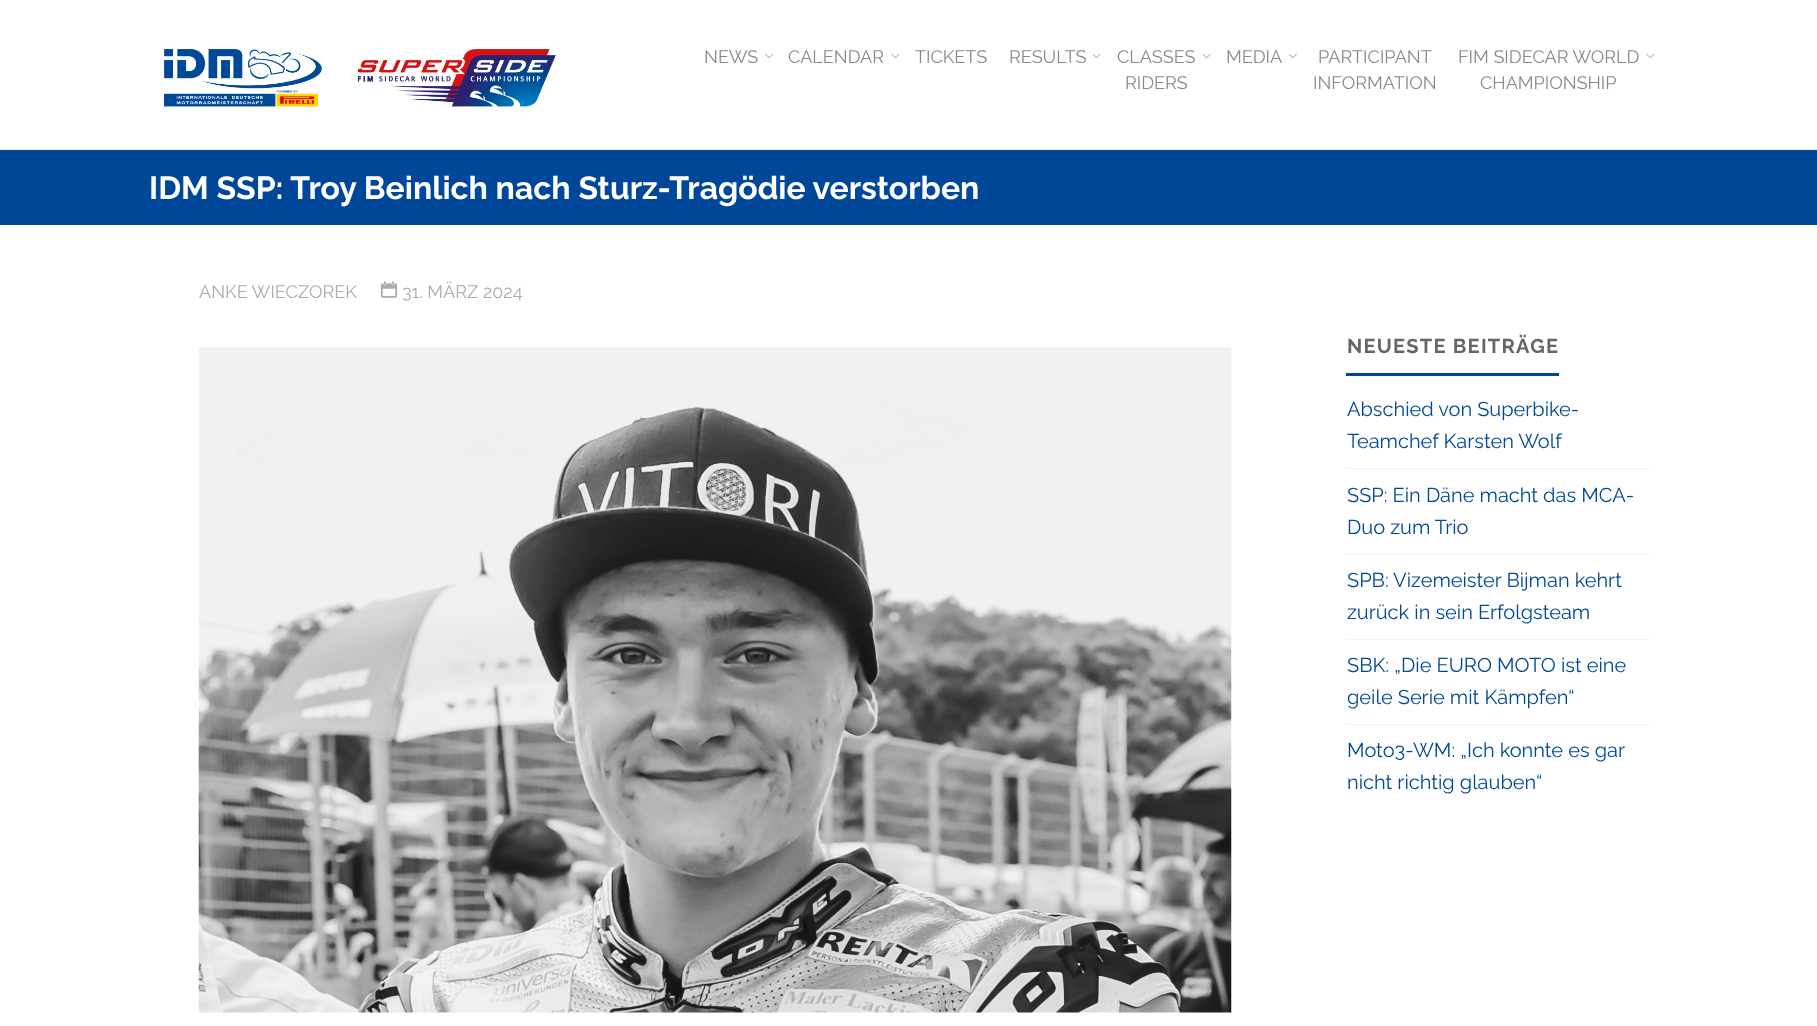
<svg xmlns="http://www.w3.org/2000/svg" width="1817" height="1026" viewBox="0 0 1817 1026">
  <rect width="100%" height="100%" fill="#fff"/>
  <path d="M0 149h1817v1H0z" fill="#f2f2f2"/>
  <image x="163" y="49" width="393" height="58" href="img/1.png"/>
  <image x="765" y="53" width="8" height="6" href="img/2.png"/>
  <image x="891" y="53" width="9" height="6" href="img/3.png"/>
  <image x="1092" y="54" width="9" height="5" href="img/4.png"/>
  <image x="1202" y="54" width="9" height="5" href="img/4.png"/>
  <image x="1288" y="53" width="9" height="6" href="img/5.png"/>
  <image x="1646" y="53" width="9" height="6" href="img/3.png"/>
  <path d="M0 150h1817v75H0z" fill="#004799"/>
  <image x="380" y="281" width="18" height="17" href="img/6.png"/>
  <image x="198" y="347" width="1034" height="666" href="img/7.png"/>
  <path d="M1346 373h213v3H1346z" fill="#004996"/>
  <path d="M1346 468h303v1H1346z" fill="#f2f2f2"/>
  <path d="M1346 554h303v1H1346z" fill="#f2f2f2"/>
  <path d="M1346 639h303v1H1346z" fill="#f2f2f2"/>
  <path d="M1346 724h303v1H1346z" fill="#f2f2f2"/>
  <g font-family="Raleway" font-size="18" fill="#888">
    <text x="704" y="63">NEWS</text>
    <text x="788" y="63">CALENDAR</text>
    <text x="915" y="63">TICKETS</text>
    <text x="1009" y="63">RESULTS</text>
    <text x="1117" y="63">CLASSES</text>
    <text x="1125" y="89">RIDERS</text>
    <text x="1226" y="63">MEDIA</text>
    <text x="1318" y="63">PARTICIPANT</text>
    <text x="1313" y="89">INFORMATION</text>
    <text x="1458" y="63">FIM SIDECAR WORLD</text>
    <text x="1480" y="89">CHAMPIONSHIP</text>
  </g>
  <text x="149" y="199" font-family="Raleway" font-size="32" font-weight="bold" fill="#fff">IDM SSP: Troy Beinlich nach Sturz-Tragödie verstorben</text>
  <g font-family="Raleway" font-size="18" fill="#ababab">
    <text x="199" y="298">ANKE WIECZOREK</text>
    <text x="402" y="298">31. MÄRZ 2024</text>
  </g>
  <text x="1347" y="353" font-family="Raleway" font-size="20" font-weight="bold" letter-spacing="1.25" fill="#666">NEUESTE BEITRÄGE</text>
  <g font-family="Raleway" font-size="20" fill="#004996">
    <text x="1347" y="416">Abschied von Superbike-</text>
    <text x="1347" y="448">Teamchef Karsten Wolf</text>
    <text x="1347" y="502">SSP: Ein Däne macht das MCA-</text>
    <text x="1347" y="534">Duo zum Trio</text>
    <text x="1347" y="587">SPB: Vizemeister Bijman kehrt</text>
    <text x="1347" y="619">zurück in sein Erfolgsteam</text>
    <text x="1347" y="672">SBK: „Die EURO MOTO ist eine</text>
    <text x="1347" y="704">geile Serie mit Kämpfen“</text>
    <text x="1347" y="757">Moto3-WM: „Ich konnte es gar</text>
    <text x="1347" y="789">nicht richtig glauben“</text>
  </g>
</svg>
